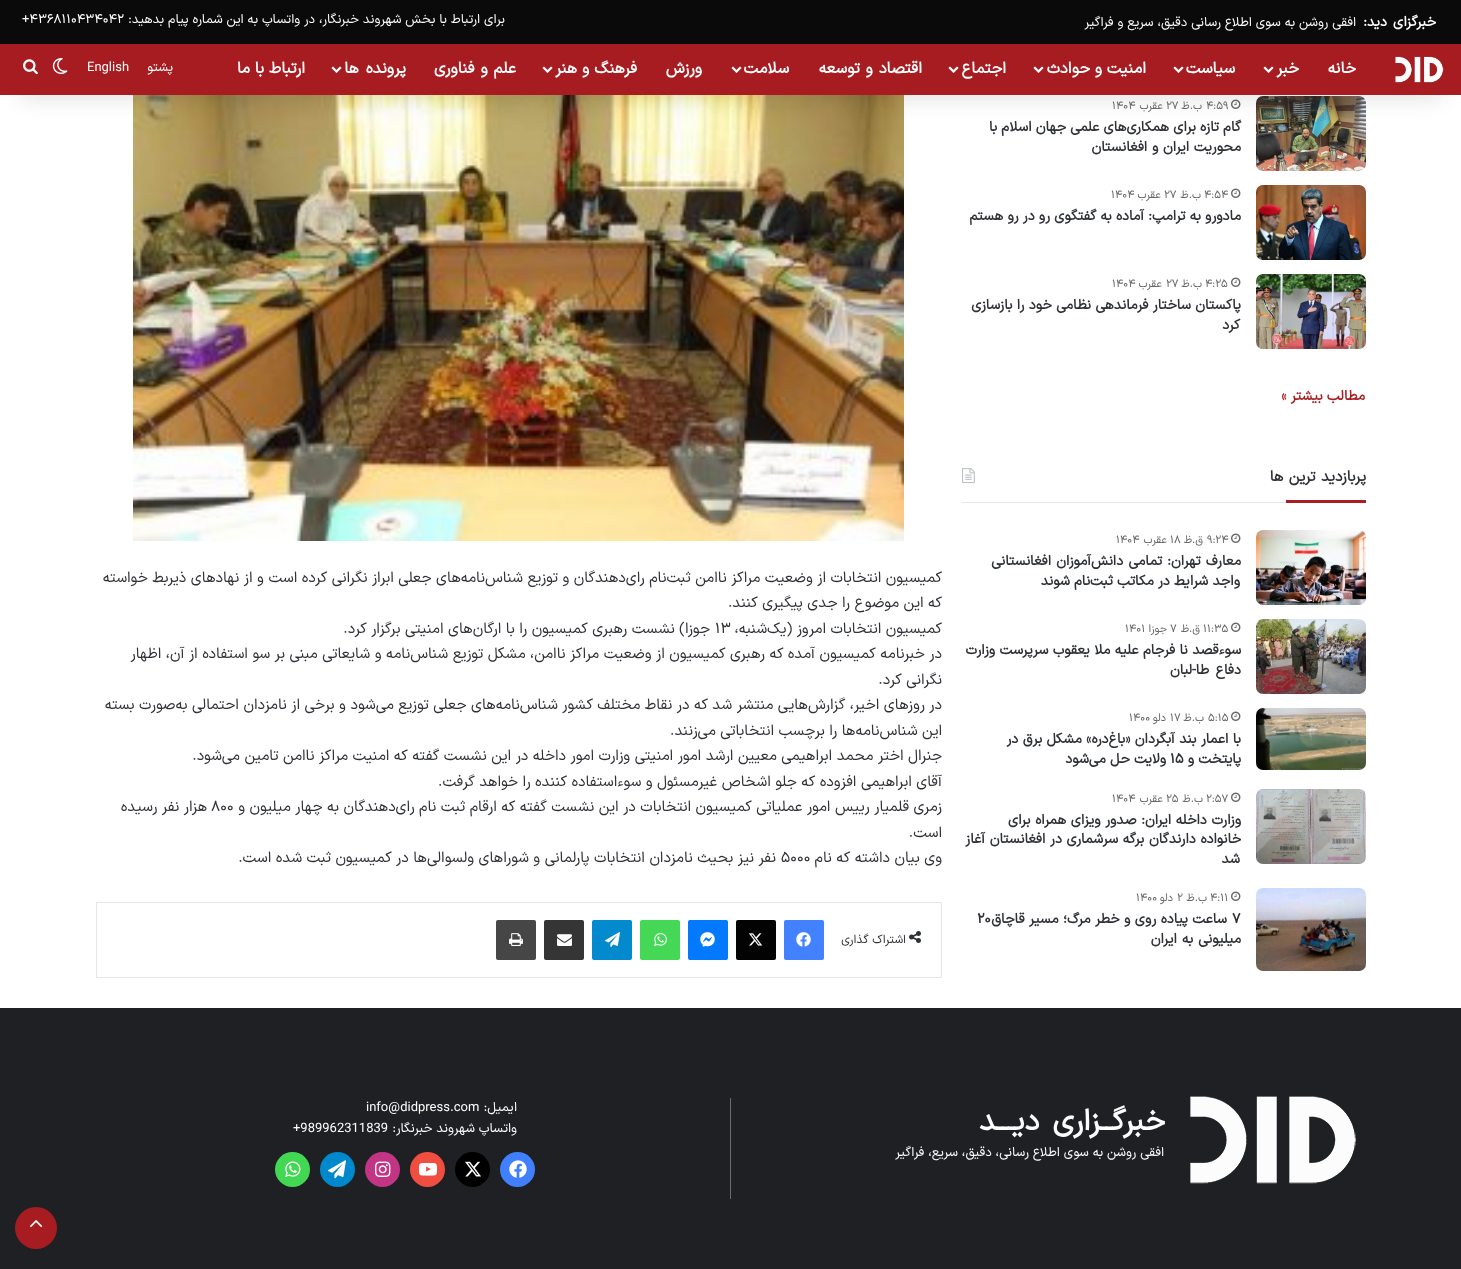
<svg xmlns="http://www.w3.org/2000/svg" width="1461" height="1269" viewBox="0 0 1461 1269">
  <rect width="100%" height="100%" fill="#fff"/>
  <image x="1256" y="96" width="110" height="75" href="img/5.png"/>
  <image x="1231" y="99" width="10" height="10" href="img/6.png"/>
  <image x="133" y="95" width="771" height="446" href="img/15.png"/>
  <path d="M20 45h1421v55H20z" fill="#0000001a" filter="blur(10px)"/>
  <path d="M0 0h1461v44H0z" fill="#0a0a0a"/>
  <path d="M0 44h1461v51H0z" fill="#a71c21"/>
  <image x="1395" y="56" width="49" height="27" href="img/1.png"/>
  <image x="1263" y="66" width="11" height="7" href="img/2.png"/>
  <image x="1173" y="66" width="11" height="7" href="img/2.png"/>
  <image x="1033" y="66" width="11" height="7" href="img/2.png"/>
  <image x="948" y="66" width="11" height="7" href="img/2.png"/>
  <image x="731" y="66" width="11" height="7" href="img/2.png"/>
  <image x="542" y="66" width="11" height="7" href="img/2.png"/>
  <image x="331" y="66" width="11" height="7" href="img/2.png"/>
  <image x="52" y="58" width="16" height="16" href="img/3.png"/>
  <image x="23" y="59" width="15" height="16" href="img/4.png"/>
  <image x="1256" y="185" width="110" height="75" href="img/7.png"/>
  <image x="1231" y="188" width="10" height="10" href="img/6.png"/>
  <image x="1256" y="274" width="110" height="75" href="img/8.png"/>
  <image x="1231" y="277" width="10" height="10" href="img/6.png"/>
  <path d="M962 502h324v1H962z" fill="#e6e6e6"/>
  <image x="962" y="468" width="13" height="16" href="img/9.png"/>
  <path d="M1286 500h80v3H1286z" fill="#a81e23"/>
  <image x="1256" y="530" width="110" height="75" href="img/10.png"/>
  <image x="1231" y="533" width="10" height="10" href="img/6.png"/>
  <image x="1256" y="619" width="110" height="75" href="img/11.png"/>
  <image x="1231" y="622" width="10" height="10" href="img/6.png"/>
  <image x="1256" y="708" width="110" height="62" href="img/12.png"/>
  <image x="1231" y="711" width="10" height="10" href="img/6.png"/>
  <image x="1256" y="789" width="110" height="75" href="img/13.png"/>
  <image x="1231" y="792" width="10" height="10" href="img/6.png"/>
  <image x="1256" y="888" width="110" height="83" href="img/14.png"/>
  <image x="1231" y="891" width="10" height="10" href="img/6.png"/>
  <path d="M96.5 902.5h845v75H96.5z" fill="none" stroke="#e6e6e6"/>
  <image x="909" y="931" width="12" height="12" href="img/16.png"/>
  <rect x="784" y="920" width="40" height="40" rx="2" fill="#4281ff"/>
  <image x="796" y="932" width="15" height="15" href="img/17.png"/>
  <rect x="736" y="920" width="40" height="40" rx="2" fill="#030303"/>
  <image x="748" y="933" width="15" height="13" href="img/18.png"/>
  <rect x="688" y="920" width="40" height="40" rx="2" fill="#0379ff"/>
  <image x="700" y="932" width="15" height="15" href="img/19.png"/>
  <rect x="640" y="920" width="40" height="40" rx="2" fill="#45d856"/>
  <image x="654" y="933" width="13" height="13" href="img/20.png"/>
  <rect x="592" y="920" width="40" height="40" rx="2" fill="#0389cd"/>
  <image x="605" y="932" width="15" height="15" href="img/21.png"/>
  <rect x="544" y="920" width="40" height="40" rx="2" fill="#353535"/>
  <image x="557" y="934" width="15" height="12" href="img/22.png"/>
  <rect x="496" y="920" width="40" height="40" rx="2" fill="#464646"/>
  <image x="509" y="933" width="14" height="13" href="img/23.png"/>
  <path d="M0 1008h1461v261H0z" fill="#1f2024"/>
  <image x="1190" y="1096" width="166" height="88" href="img/24.png"/>
  <path d="M730 1098h1v101H730z" fill="#6c6c6c"/>
  <circle cx="517.5" cy="1169.5" r="17.5" fill="#4080ff"/>
  <image x="509" y="1160" width="18" height="18" href="img/25.png"/>
  <circle cx="472.5" cy="1169.5" r="17.5" fill="#000"/>
  <image x="465" y="1161" width="16" height="16" href="img/26.png"/>
  <circle cx="427.5" cy="1169.5" r="17.5" fill="#ef4e41"/>
  <image x="419" y="1162" width="18" height="14" href="img/27.png"/>
  <circle cx="382.5" cy="1169.5" r="17.5" fill="#c13584"/>
  <image x="375" y="1161" width="16" height="16" href="img/28.png"/>
  <circle cx="337.5" cy="1169.5" r="17.5" fill="#08c"/>
  <image x="328" y="1160" width="18" height="19" href="img/29.png"/>
  <circle cx="292.5" cy="1169.5" r="17.5" fill="#43d854"/>
  <image x="285" y="1161" width="16" height="16" href="img/30.png"/>
  <circle cx="36" cy="1228" r="21" fill="#a71c21"/>
  <image x="30" y="1220" width="13" height="8" href="img/31.png"/>
  <text x="1436" y="26" word-spacing="2" font-family="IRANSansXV" font-size="14" font-weight="bold" direction="rtl" fill="#fdfdfd">خبرگزای دید:</text>
  <g font-family="IRANSansXV" font-size="13" direction="rtl" fill="#fdfdfd">
    <text x="1356" y="26">افقی روشن به سوی اطلاع رسانی دقیق، سریع و فراگیر</text>
    <text x="505" y="23">برای ارتباط با بخش شهروند خبرنگار، در واتساپ به این شماره پیام بدهید:</text>
  </g>
  <text x="22" y="23" font-family="IRANSansXV" font-size="13" fill="#fdfdfd">+۴۳۶۸۱۱۰۴۳۴۰۴۲</text>
  <g font-family="IRANSansXV" font-size="16" font-weight="bold" direction="rtl" fill="#fdfdfd">
    <text x="1356" y="73">خانه</text>
    <text x="1299" y="73">خبر</text>
    <text x="1235" y="73">سیاست</text>
    <text x="1146" y="73">امنیت و حوادث</text>
    <text x="1006" y="73">اجتماع</text>
    <text x="922" y="73" word-spacing="1">اقتصاد و توسعه</text>
    <text x="789" y="73">سلامت</text>
    <text x="702" y="73">ورزش</text>
    <text x="637" y="73" word-spacing="0.25">فرهنگ و هنر</text>
    <text x="516" y="73" word-spacing="1">علم و فناوری</text>
    <text x="406" y="73" word-spacing="2">پرونده ها</text>
    <text x="305" y="73">ارتباط با ما</text>
  </g>
  <text x="173" y="71" font-family="IRANSansXV" font-size="13" direction="rtl" fill="#fdfdfd">پشتو</text>
  <text x="87" y="71" font-family="IRANSansXV" font-size="13" fill="#fdfdfd">English</text>
  <text x="1206" y="109" font-family="IRANSansXV" font-size="11" fill="#686868">۴:۵۹</text>
  <text x="1202" y="109" font-family="IRANSansXV" font-size="11" direction="rtl" fill="#686868">ب.ظ</text>
  <text x="1166" y="109" font-family="IRANSansXV" font-size="11" fill="#686868">۲۷</text>
  <text x="1163" y="109" font-family="IRANSansXV" font-size="11" direction="rtl" fill="#686868">عقرب</text>
  <text x="1112" y="109" font-family="IRANSansXV" font-size="11" fill="#686868">۱۴۰۴</text>
  <g font-family="IRANSansXV" font-size="14" font-weight="bold" direction="rtl" fill="#2e3136">
    <text x="1241" y="131">گام تازه برای همکاری‌های علمی جهان اسلام با</text>
    <text x="1241" y="151" word-spacing="0.5">محوریت ایران و افغانستان</text>
  </g>
  <text x="1204" y="198" font-family="IRANSansXV" font-size="11" fill="#686868">۴:۵۴</text>
  <text x="1201" y="198" font-family="IRANSansXV" font-size="11" direction="rtl" fill="#686868">ب.ظ</text>
  <text x="1164" y="198" font-family="IRANSansXV" font-size="11" fill="#686868">۲۷</text>
  <text x="1161" y="198" font-family="IRANSansXV" font-size="11" direction="rtl" fill="#686868">عقرب</text>
  <text x="1111" y="198" font-family="IRANSansXV" font-size="11" fill="#686868">۱۴۰۴</text>
  <text x="1241" y="220" font-family="IRANSansXV" font-size="14" font-weight="bold" direction="rtl" fill="#2e3136">مادورو به ترامپ: آماده به گفتگوی رو در رو هستم</text>
  <text x="1205" y="287" font-family="IRANSansXV" font-size="11" fill="#686868">۴:۲۵</text>
  <text x="1202" y="287" font-family="IRANSansXV" font-size="11" direction="rtl" fill="#686868">ب.ظ</text>
  <text x="1166" y="287" font-family="IRANSansXV" font-size="11" fill="#686868">۲۷</text>
  <text x="1162" y="287" font-family="IRANSansXV" font-size="11" direction="rtl" fill="#686868">عقرب</text>
  <text x="1112" y="287" font-family="IRANSansXV" font-size="11" fill="#686868">۱۴۰۴</text>
  <g font-family="IRANSansXV" font-size="14" font-weight="bold" direction="rtl" fill="#2e3136">
    <text x="1241" y="309" word-spacing="0.25">پاکستان ساختار فرماندهی نظامی خود را بازسازی</text>
    <text x="1240" y="329">کرد</text>
  </g>
  <text x="1365" y="400" font-family="IRANSansXV" font-size="14" font-weight="bold" direction="rtl" fill="#a81e23">مطالب بیشتر »</text>
  <text x="1366" y="481" word-spacing="1" font-family="IRANSansXV" font-size="15" font-weight="bold" direction="rtl" fill="#2e3136">پربازدید ترین ها</text>
  <text x="1207" y="543" font-family="IRANSansXV" font-size="11" fill="#686868">۹:۲۴</text>
  <text x="1203" y="543" font-family="IRANSansXV" font-size="11" direction="rtl" fill="#686868">ق.ظ</text>
  <text x="1170" y="543" font-family="IRANSansXV" font-size="11" fill="#686868">۱۸</text>
  <text x="1167" y="543" font-family="IRANSansXV" font-size="11" direction="rtl" fill="#686868">عقرب</text>
  <text x="1116" y="543" font-family="IRANSansXV" font-size="11" fill="#686868">۱۴۰۴</text>
  <g font-family="IRANSansXV" font-size="14" font-weight="bold" direction="rtl" fill="#2e3136">
    <text x="1241" y="565" word-spacing="1">معارف تهران: تمامی دانش‌آموزان افغانستانی</text>
    <text x="1240" y="585">واجد شرایط در مکاتب ثبت‌نام شوند</text>
  </g>
  <text x="1203" y="632" font-family="IRANSansXV" font-size="11" fill="#686868">۱۱:۳۵</text>
  <text x="1200" y="632" font-family="IRANSansXV" font-size="11" direction="rtl" fill="#686868">ق.ظ</text>
  <text x="1170" y="632" font-family="IRANSansXV" font-size="11" fill="#686868">۷</text>
  <text x="1167" y="632" font-family="IRANSansXV" font-size="11" direction="rtl" fill="#686868">جوزا</text>
  <text x="1125" y="632" font-family="IRANSansXV" font-size="11" fill="#686868">۱۴۰۱</text>
  <g font-family="IRANSansXV" font-size="14" font-weight="bold" direction="rtl" fill="#2e3136">
    <text x="1241" y="654" word-spacing="0.25">سوءقصد نا فرجام علیه ملا یعقوب سرپرست وزارت</text>
    <text x="1241" y="674" word-spacing="2">دفاع طا-لبان</text>
  </g>
  <text x="1208" y="721" font-family="IRANSansXV" font-size="11" fill="#686868">۵:۱۵</text>
  <text x="1204" y="721" font-family="IRANSansXV" font-size="11" direction="rtl" fill="#686868">ب.ظ</text>
  <text x="1170" y="721" font-family="IRANSansXV" font-size="11" fill="#686868">۱۷</text>
  <text x="1166" y="721" font-family="IRANSansXV" font-size="11" direction="rtl" fill="#686868">دلو</text>
  <text x="1129" y="721" font-family="IRANSansXV" font-size="11" fill="#686868">۱۴۰۰</text>
  <g font-family="IRANSansXV" font-size="14" font-weight="bold" direction="rtl" fill="#2e3136">
    <text x="1241" y="743" word-spacing="0.25">با اعمار بند آبگردان «باغ‌دره» مشکل برق در</text>
    <text x="1241" y="763">پایتخت و</text>
  </g>
  <text x="1170" y="763" font-family="IRANSansXV" font-size="14" font-weight="bold" fill="#2e3136">۱۵</text>
  <text x="1166" y="763" font-family="IRANSansXV" font-size="14" font-weight="bold" direction="rtl" fill="#2e3136">ولایت حل می‌شود</text>
  <text x="1206" y="802" font-family="IRANSansXV" font-size="11" fill="#686868">۲:۵۷</text>
  <text x="1203" y="802" font-family="IRANSansXV" font-size="11" direction="rtl" fill="#686868">ب.ظ</text>
  <text x="1166" y="802" font-family="IRANSansXV" font-size="11" fill="#686868">۲۵</text>
  <text x="1163" y="802" font-family="IRANSansXV" font-size="11" direction="rtl" fill="#686868">عقرب</text>
  <text x="1112" y="802" font-family="IRANSansXV" font-size="11" fill="#686868">۱۴۰۴</text>
  <g font-family="IRANSansXV" font-size="14" font-weight="bold" direction="rtl" fill="#2e3136">
    <text x="1241" y="824" word-spacing="0.5">وزارت داخله ایران: صدور ویزای همراه برای</text>
    <text x="1241" y="843" word-spacing="0.5">خانواده‌ دارندگان برگه سرشماری در افغانستان آغاز</text>
    <text x="1240" y="863">شد</text>
  </g>
  <text x="1210" y="901" font-family="IRANSansXV" font-size="11" fill="#686868">۴:۱۱</text>
  <text x="1207" y="901" font-family="IRANSansXV" font-size="11" direction="rtl" fill="#686868">ب.ظ</text>
  <text x="1177" y="901" font-family="IRANSansXV" font-size="11" fill="#686868">۲</text>
  <text x="1173" y="901" font-family="IRANSansXV" font-size="11" direction="rtl" fill="#686868">دلو</text>
  <text x="1136" y="901" font-family="IRANSansXV" font-size="11" fill="#686868">۱۴۰۰</text>
  <text x="1232" y="923" font-family="IRANSansXV" font-size="14" font-weight="bold" fill="#2e3136">۷</text>
  <text x="1227" y="923" word-spacing="0.25" font-family="IRANSansXV" font-size="14" font-weight="bold" direction="rtl" fill="#2e3136">ساعت پیاده روی و خطر مرگ؛ مسیر قاچاق</text>
  <text x="977" y="923" font-family="IRANSansXV" font-size="14" font-weight="bold" fill="#2e3136">۲۰</text>
  <text x="1241" y="943" word-spacing="1" font-family="IRANSansXV" font-size="14" font-weight="bold" direction="rtl" fill="#2e3136">میلیونی به ایران</text>
  <g font-family="IRANSansXV" font-size="15" direction="rtl" fill="#2e3136">
    <text x="942" y="582">کمیسیون انتخابات از وضعیت مراکز ناامن ثبت‌نام رای‌دهندگان و توزیع شناس‌نامه‌های جعلی ابراز نگرانی کرده است و از نهادهای ذیربط خواسته</text>
    <text x="942" y="607">که این موضوع را جدی پیگیری کنند.</text>
    <text x="942" y="633">کمیسیون انتخابات امروز (یک‌شنبه،</text>
  </g>
  <text x="715" y="633" font-family="IRANSansXV" font-size="15" fill="#2e3136">۱۳</text>
  <g font-family="IRANSansXV" font-size="15" direction="rtl" fill="#2e3136">
    <text x="710" y="633">جوزا) نشست رهبری کمیسیون را با ارگان‌های امنیتی برگزار کرد.</text>
    <text x="942" y="658">در خبرنامه‌ کمیسیون آمده که رهبری کمیسیون از وضعیت مراکز ناامن، مشکل توزیع شناس‌نامه و شایعاتی مبنی بر سو استفاده از آن، اظهار</text>
    <text x="942" y="684">نگرانی کرد.</text>
    <text x="942" y="709">در روزهای اخیر، گزارش‌هایی منتشر شد که در نقاط مختلف کشور شناس‌نامه‌های جعلی توزیع می‌شود و برخی از نامزدان احتمالی به‌صورت بسته‌</text>
    <text x="942" y="735">این شناس‌نامه‌ها را برچسب انتخاباتی می‌زنند.</text>
    <text x="942" y="760">جنرال اختر محمد ابراهیمی معیین ارشد امور امنیتی وزارت امور داخله در این نشست گفته که امنیت مراکز ناامن تامین می‌شود.</text>
    <text x="942" y="786">آقای ابراهیمی افزوده که جلو اشخاص غیرمسئول و سوءاستفاده کننده را خواهد گرفت.</text>
    <text x="942" y="811">زمری قلمیار رییس امور عملیاتی کمیسیون انتخابات در این نشست گفته که ارقام ثبت‌ نام را‌ی‌دهندگان به چهار میلیون و</text>
  </g>
  <text x="211" y="811" font-family="IRANSansXV" font-size="15" fill="#2e3136">۸۰۰</text>
  <g font-family="IRANSansXV" font-size="15" direction="rtl" fill="#2e3136">
    <text x="207" y="811">هزار نفر رسیده</text>
    <text x="942" y="837">است.</text>
    <text x="942" y="862">وی بیان داشته که نام</text>
  </g>
  <text x="781" y="862" font-family="IRANSansXV" font-size="15" fill="#2e3136">۵۰۰۰</text>
  <text x="776" y="862" font-family="IRANSansXV" font-size="15" direction="rtl" fill="#2e3136">نفر نیز بحیث نامزدان انتخابات پارلمانی و شوراهای ولسوالی‌ها در کمیسیون ثبت شده است.</text>
  <text x="906" y="943" font-family="IRANSansXV" font-size="12" direction="rtl" fill="#2e3136">اشتراک گذاری</text>
  <text x="1165" y="1130" word-spacing="4" font-family="IRANSansXV" font-size="30" font-weight="bold" direction="rtl" fill="#fdfdfd">خبرگــزاری دیـــد</text>
  <g font-family="IRANSansXV" font-size="13" direction="rtl" fill="#fdfdfd">
    <text x="1164" y="1156">افقی روشن به سوی اطلاع رسانی، دقیق، سریع، فراگیر</text>
    <text x="517" y="1111">ایمیل:</text>
  </g>
  <text x="366" y="1111" font-family="IRANSansXV" font-size="13" fill="#fdfdfd">info@didpress.com</text>
  <text x="517" y="1132" font-family="IRANSansXV" font-size="13" direction="rtl" fill="#fdfdfd">واتساپ شهروند خبرنگار:</text>
  <text x="293" y="1132" font-family="IRANSansXV" font-size="13" fill="#fdfdfd">+989962311839</text>
</svg>
